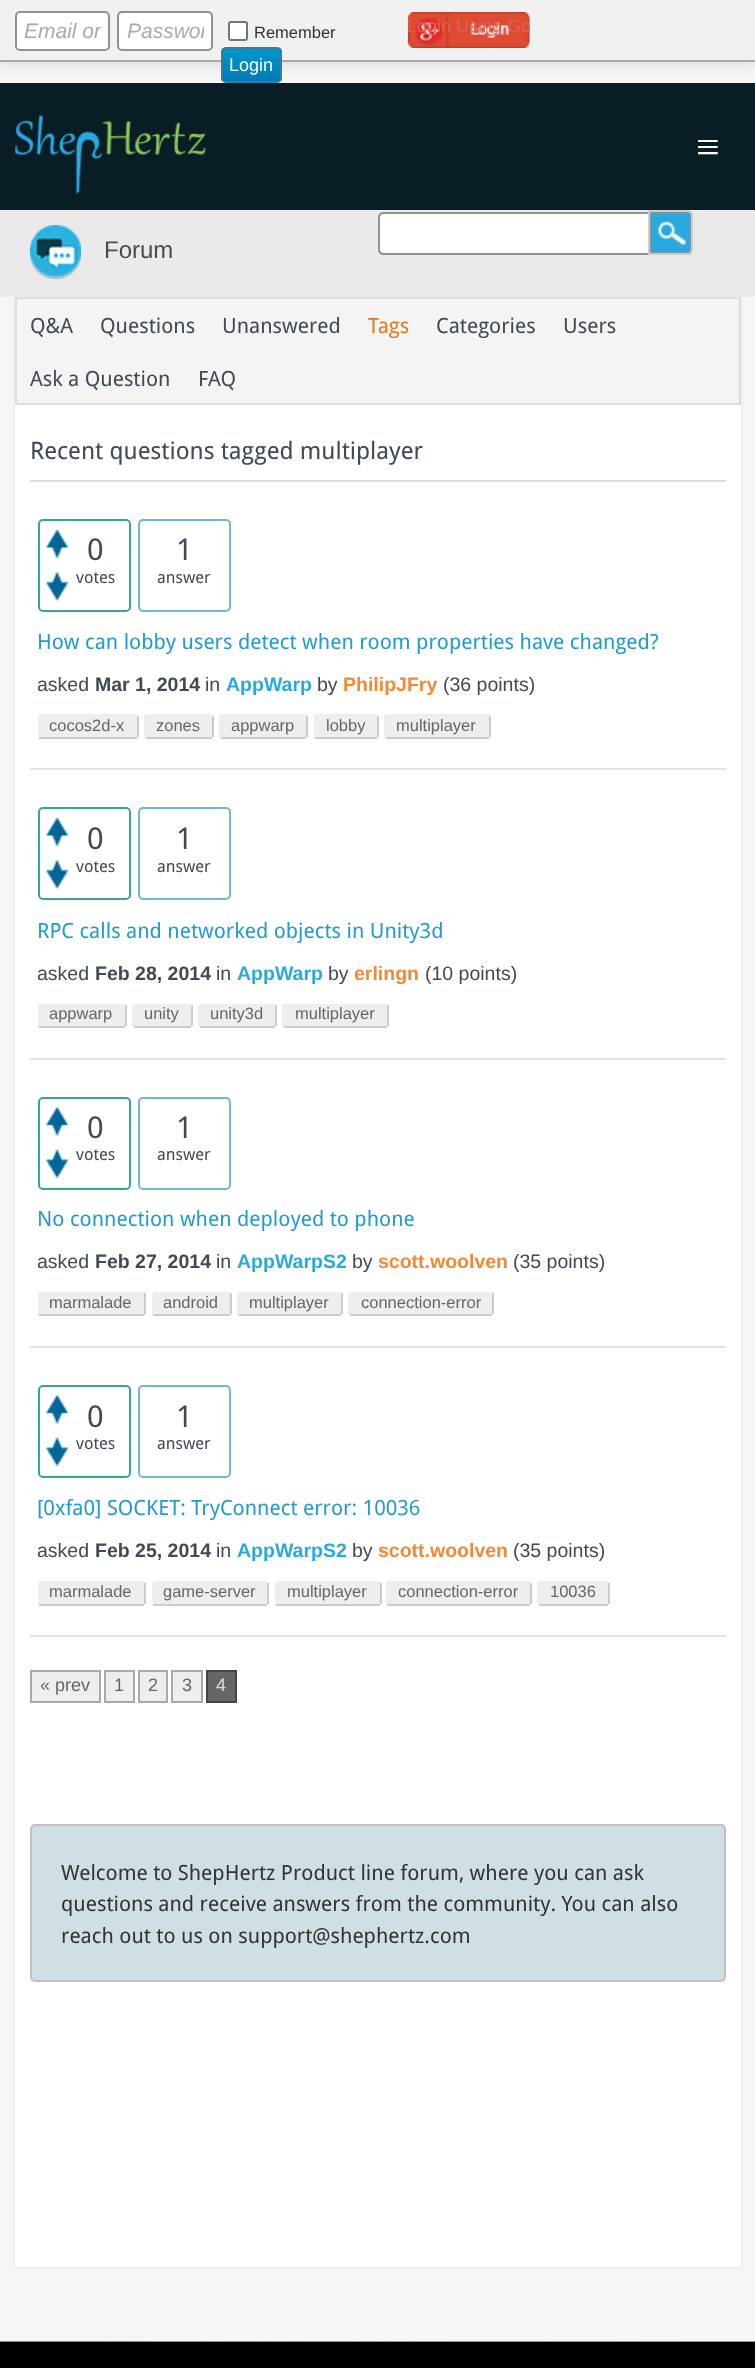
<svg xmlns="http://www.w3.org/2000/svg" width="755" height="2368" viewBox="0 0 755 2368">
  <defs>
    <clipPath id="clip1"><rect x="221" y="47" width="61" height="36" rx="5"/></clipPath>
    <linearGradient id="g1" gradientUnits="userSpaceOnUse" x1="251" y1="48" x2="251" y2="81"><stop offset="0" stop-color="#09c"/><stop offset="1" stop-color="#0179b5"/></linearGradient>
    <clipPath id="clip2"><path d="M24 20h77v24H24z"/></clipPath>
    <clipPath id="clip3"><path d="M126 20h78v24H126z"/></clipPath>
    <clipPath id="clip4"><path d="M408 12h122v36H408z"/></clipPath>
  </defs>
  <rect width="100%" height="100%" fill="#f6f6f6"/>
  <path d="M0 0h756v62H0z" fill="#00000026" filter="blur(7.5px)"/>
  <path d="M0 0h755v60H0z" fill="#f1f1f1"/>
  <path d="M0 60h755v2H0z" fill="#aaa"/>
  <rect x="16" y="12" width="93" height="38" rx="4" fill="#fff" stroke="#919191" stroke-width="2"/>
  <rect x="118" y="12" width="94" height="38" rx="4" fill="#fff" stroke="#919191" stroke-width="2"/>
  <rect x="229" y="22" width="18" height="18" rx="2" fill="#fff" stroke="#767676" stroke-width="2"/>
  <g clip-path="url(#clip1)">
    <path d="M221 48h61v33H221z" fill="url(#g1)"/>
  </g>
  <rect x="222" y="48" width="59" height="34" rx="4" fill="none" stroke="#307fa6" stroke-width="2"/>
  <image x="408" y="12" width="122" height="36" href="img/1.png"/>
  <path d="M15 92h726v2175H15z" fill="#0000001a" filter="blur(1.5px)"/>
  <path d="M0 210h755v87H0z" fill="#ebeaea"/>
  <path d="M383 213H649V254H383C381 254 379 252 379 250V217C379 215 381 213 383 213Z" fill="#fff" stroke="#919191" stroke-width="2"/>
  <image x="650" y="211" width="42" height="44" href="img/2.png"/>
  <path d="M649 211H688C690 211 692 213 692 215V250C692 252 690 254 688 254H649Z" fill="none" stroke="#ccc" stroke-width="2"/>
  <path d="M0 83h755v127H0z" fill="#091d25"/>
  <image x="15" y="115" width="191" height="79" href="img/3.png"/>
  <image x="30" y="225" width="51" height="54" href="img/4.png"/>
  <path d="M15 405h726v1862H15z" fill="#fff"/>
  <path d="M16 298h724v106H16z" fill="#f5f4f4" stroke="#ddd" stroke-width="2"/>
  <path d="M30 480h696v2H30z" fill="#ddd"/>
  <path d="M30 768h696v2H30z" fill="#e4e4e4"/>
  <rect x="39" y="520" width="91" height="91" rx="4" fill="none" stroke="#37a59c" stroke-width="2"/>
  <image x="46" y="529" width="23" height="31" href="img/5.png"/>
  <image x="46" y="571" width="23" height="31" href="img/6.png"/>
  <rect x="139" y="520" width="91" height="91" rx="4" fill="none" stroke="#74b8cf" stroke-width="2"/>
  <rect x="38" y="714" width="100" height="24" rx="3" fill="#eee"/>
  <path d="M137 716h2v21H137z" fill="#ccc"/>
  <path d="M39 737h98v2H39z" fill="#ccc"/>
  <rect x="144" y="714" width="69" height="24" rx="3" fill="#eee"/>
  <path d="M212 716h2v21H212z" fill="#ccc"/>
  <path d="M146 737h66v2H146z" fill="#ccc"/>
  <rect x="219" y="714" width="89" height="24" rx="3" fill="#eee"/>
  <path d="M306 716h2v21H306z" fill="#ccc"/>
  <path d="M221 737h85v2H221z" fill="#ccc"/>
  <rect x="314" y="714" width="64" height="24" rx="3" fill="#eee"/>
  <path d="M377 716h2v21H377z" fill="#ccc"/>
  <path d="M315 737h62v2H315z" fill="#ccc"/>
  <rect x="384" y="714" width="107" height="24" rx="3" fill="#eee"/>
  <path d="M489 716h2v21H489z" fill="#ccc"/>
  <path d="M386 737h103v2H386z" fill="#ccc"/>
  <path d="M30 1058h696v2H30z" fill="#e4e4e4"/>
  <rect x="39" y="808" width="91" height="91" rx="4" fill="none" stroke="#37a59c" stroke-width="2"/>
  <image x="46" y="817" width="23" height="31" href="img/5.png"/>
  <image x="46" y="859" width="23" height="31" href="img/6.png"/>
  <rect x="139" y="808" width="91" height="91" rx="4" fill="none" stroke="#74b8cf" stroke-width="2"/>
  <rect x="38" y="1004" width="88" height="24" rx="3" fill="#eee"/>
  <path d="M125 1005h2v21H125z" fill="#ccc"/>
  <path d="M39 1026h86v2H39z" fill="#ccc"/>
  <rect x="132" y="1004" width="60" height="24" rx="3" fill="#eee"/>
  <path d="M191 1005h2v21H191z" fill="#ccc"/>
  <path d="M134 1026h57v2H134z" fill="#ccc"/>
  <rect x="198" y="1004" width="78" height="24" rx="3" fill="#eee"/>
  <path d="M275 1005h2v21H275z" fill="#ccc"/>
  <path d="M200 1026h75v2H200z" fill="#ccc"/>
  <rect x="282" y="1004" width="107" height="24" rx="3" fill="#eee"/>
  <path d="M387 1005h2v21H387z" fill="#ccc"/>
  <path d="M284 1026h103v2H284z" fill="#ccc"/>
  <path d="M30 1346h696v2H30z" fill="#e4e4e4"/>
  <rect x="39" y="1098" width="91" height="91" rx="4" fill="none" stroke="#37a59c" stroke-width="2"/>
  <image x="46" y="1107" width="23" height="30" href="img/7.png"/>
  <image x="46" y="1149" width="23" height="30" href="img/8.png"/>
  <rect x="139" y="1098" width="91" height="91" rx="4" fill="none" stroke="#74b8cf" stroke-width="2"/>
  <rect x="38" y="1292" width="108" height="24" rx="3" fill="#eee"/>
  <path d="M144 1293h2v21H144z" fill="#ccc"/>
  <path d="M39 1314h105v2H39z" fill="#ccc"/>
  <rect x="152" y="1292" width="79" height="24" rx="3" fill="#eee"/>
  <path d="M230 1293h2v21H230z" fill="#ccc"/>
  <path d="M153 1314h77v2H153z" fill="#ccc"/>
  <rect x="237" y="1292" width="105" height="24" rx="3" fill="#eee"/>
  <path d="M341 1293h2v21H341z" fill="#ccc"/>
  <path d="M239 1314h102v2H239z" fill="#ccc"/>
  <rect x="348" y="1292" width="146" height="24" rx="3" fill="#eee"/>
  <path d="M492 1293h2v21H492z" fill="#ccc"/>
  <path d="M350 1314h142v2H350z" fill="#ccc"/>
  <path d="M30 1635h696v2H30z" fill="#e4e4e4"/>
  <rect x="39" y="1386" width="91" height="91" rx="4" fill="none" stroke="#37a59c" stroke-width="2"/>
  <image x="46" y="1395" width="23" height="30" href="img/7.png"/>
  <image x="46" y="1437" width="23" height="30" href="img/8.png"/>
  <rect x="139" y="1386" width="91" height="91" rx="4" fill="none" stroke="#74b8cf" stroke-width="2"/>
  <rect x="38" y="1581" width="108" height="24" rx="3" fill="#eee"/>
  <path d="M144 1583h2v21H144z" fill="#ccc"/>
  <path d="M39 1604h105v2H39z" fill="#ccc"/>
  <rect x="152" y="1581" width="117" height="24" rx="3" fill="#eee"/>
  <path d="M267 1583h2v21H267z" fill="#ccc"/>
  <path d="M153 1604h114v2H153z" fill="#ccc"/>
  <rect x="275" y="1581" width="106" height="24" rx="3" fill="#eee"/>
  <path d="M380 1583h2v21H380z" fill="#ccc"/>
  <path d="M276 1604h104v2H276z" fill="#ccc"/>
  <rect x="386" y="1581" width="145" height="24" rx="3" fill="#eee"/>
  <path d="M530 1583h2v21H530z" fill="#ccc"/>
  <path d="M387 1604h143v2H387z" fill="#ccc"/>
  <rect x="537" y="1581" width="72" height="24" rx="3" fill="#eee"/>
  <path d="M608 1583h2v21H608z" fill="#ccc"/>
  <path d="M539 1604h69v2H539z" fill="#ccc"/>
  <path d="M31 1671h69v31H31z" fill="#eee" stroke="#aaa" stroke-width="2"/>
  <path d="M105 1671h29v31H105z" fill="#eee" stroke="#aaa" stroke-width="2"/>
  <path d="M139 1671h28v31H139z" fill="#eee" stroke="#aaa" stroke-width="2"/>
  <path d="M172 1671h30v31H172z" fill="#eee" stroke="#aaa" stroke-width="2"/>
  <path d="M207 1671h29v31H207z" fill="#666" stroke="#444" stroke-width="2"/>
  <rect x="31" y="1825" width="694" height="156" rx="4" fill="#d0dfe4" stroke="#c1c1c1" stroke-width="2"/>
  <image x="0" y="2341" width="755" height="1" href="img/9.png"/>
  <path d="M0 2342h755v26H0z" fill="#000"/>
  <g clip-path="url(#clip2)">
    <text x="24" y="38" font-family="Liberation Sans" font-size="21" font-style="italic" fill="#aaa">Email or</text>
  </g>
  <g clip-path="url(#clip3)">
    <text x="127" y="38" font-family="Liberation Sans" font-size="21" font-style="italic" fill="#aaa">Passwor</text>
  </g>
  <text x="254" y="38" font-family="Liberation Sans" font-size="16.5" fill="#333">Remember</text>
  <text x="229" y="71" font-family="Liberation Sans" font-size="18" fill="#fff">Login</text>
  <g clip-path="url(#clip4)">
    <text x="407" y="32" font-family="Liberation Sans" font-size="18" fill="#e26253">Login Using Go</text>
  </g>
  <text x="696" y="161" font-family="Liberation Serif" font-size="42" fill="#fff">≡</text>
  <text x="104" y="258" font-family="Liberation Sans" font-size="24" fill="#4c4c4c">Forum</text>
  <g font-family="Droid Sans" font-size="21" fill="#3f4a56">
    <text x="30" y="333">Q&amp;A</text>
    <text x="100" y="333">Questions</text>
    <text x="222" y="333">Unanswered</text>
  </g>
  <text x="368" y="333" font-family="Droid Sans" font-size="21" fill="#e77722">Tags</text>
  <g font-family="Droid Sans" font-size="21" fill="#3f4a56">
    <text x="436" y="333">Categories</text>
    <text x="563" y="333">Users</text>
    <text x="30" y="386">Ask a Question</text>
    <text x="198" y="386">FAQ</text>
  </g>
  <text x="30" y="459" font-family="Droid Sans" font-size="24" fill="#3f4a56">Recent questions tagged multiplayer</text>
  <text x="87" y="560" font-family="Droid Sans" font-size="30" fill="#3f4a56">0</text>
  <text x="76" y="583" font-family="Droid Sans" font-size="16.5" fill="#3f4a56">votes</text>
  <text x="176" y="560" font-family="Droid Sans" font-size="30" fill="#3f4a56">1</text>
  <text x="157" y="583" font-family="Droid Sans" font-size="16.5" fill="#3f4a56">answer</text>
  <text x="37" y="649" font-family="Droid Sans" font-size="21" fill="#249bcf">How can lobby users detect when room properties have changed?</text>
  <text x="37" y="691" font-family="Liberation Sans" font-size="19.5" fill="#3f4a56">asked</text>
  <text x="95" y="691" font-family="Liberation Sans" font-size="19.5" font-weight="bold" fill="#3f4a56">Mar 1, 2014</text>
  <text x="205" y="691" font-family="Liberation Sans" font-size="19.5" fill="#3f4a56">in</text>
  <text x="226" y="691" font-family="Liberation Sans" font-size="19.5" font-weight="bold" fill="#2aa9e0">AppWarp</text>
  <text x="317" y="691" font-family="Liberation Sans" font-size="19.5" fill="#3f4a56">by</text>
  <text x="343" y="691" font-family="Liberation Sans" font-size="19.5" font-weight="bold" fill="#f38837">PhilipJFry</text>
  <text x="443" y="691" font-family="Liberation Sans" font-size="19.5" fill="#3f4a56">(36 points)</text>
  <g font-family="Liberation Sans" font-size="16.5" fill="#666">
    <text x="49" y="731">cocos2d-x</text>
    <text x="156" y="731">zones</text>
    <text x="231" y="731">appwarp</text>
    <text x="326" y="731">lobby</text>
    <text x="396" y="731">multiplayer</text>
  </g>
  <text x="87" y="849" font-family="Droid Sans" font-size="30" fill="#3f4a56">0</text>
  <text x="76" y="872" font-family="Droid Sans" font-size="16.5" fill="#3f4a56">votes</text>
  <text x="176" y="849" font-family="Droid Sans" font-size="30" fill="#3f4a56">1</text>
  <text x="157" y="872" font-family="Droid Sans" font-size="16.5" fill="#3f4a56">answer</text>
  <text x="37" y="938" font-family="Droid Sans" font-size="21" fill="#249bcf">RPC calls and networked objects in Unity3d</text>
  <text x="37" y="980" font-family="Liberation Sans" font-size="19.5" fill="#3f4a56">asked</text>
  <text x="95" y="980" font-family="Liberation Sans" font-size="19.5" font-weight="bold" fill="#3f4a56">Feb 28, 2014</text>
  <text x="216" y="980" font-family="Liberation Sans" font-size="19.5" fill="#3f4a56">in</text>
  <text x="237" y="980" font-family="Liberation Sans" font-size="19.5" font-weight="bold" fill="#2aa9e0">AppWarp</text>
  <text x="328" y="980" font-family="Liberation Sans" font-size="19.5" fill="#3f4a56">by</text>
  <text x="354" y="980" font-family="Liberation Sans" font-size="19.5" font-weight="bold" fill="#f38837">erlingn</text>
  <text x="425" y="980" font-family="Liberation Sans" font-size="19.5" fill="#3f4a56">(10 points)</text>
  <g font-family="Liberation Sans" font-size="16.5" fill="#666">
    <text x="49" y="1019">appwarp</text>
    <text x="144" y="1019">unity</text>
    <text x="210" y="1019">unity3d</text>
    <text x="295" y="1019">multiplayer</text>
  </g>
  <text x="87" y="1138" font-family="Droid Sans" font-size="30" fill="#3f4a56">0</text>
  <text x="76" y="1160" font-family="Droid Sans" font-size="16.5" fill="#3f4a56">votes</text>
  <text x="176" y="1138" font-family="Droid Sans" font-size="30" fill="#3f4a56">1</text>
  <text x="157" y="1160" font-family="Droid Sans" font-size="16.5" fill="#3f4a56">answer</text>
  <text x="37" y="1226" font-family="Droid Sans" font-size="21" fill="#249bcf">No connection when deployed to phone</text>
  <text x="37" y="1268" font-family="Liberation Sans" font-size="19.5" fill="#3f4a56">asked</text>
  <text x="95" y="1268" font-family="Liberation Sans" font-size="19.5" font-weight="bold" fill="#3f4a56">Feb 27, 2014</text>
  <text x="216" y="1268" font-family="Liberation Sans" font-size="19.5" fill="#3f4a56">in</text>
  <text x="237" y="1268" font-family="Liberation Sans" font-size="19.5" font-weight="bold" fill="#2aa9e0">AppWarpS2</text>
  <text x="352" y="1268" font-family="Liberation Sans" font-size="19.5" fill="#3f4a56">by</text>
  <text x="378" y="1268" font-family="Liberation Sans" font-size="19.5" font-weight="bold" fill="#f38837">scott.woolven</text>
  <text x="513" y="1268" font-family="Liberation Sans" font-size="19.5" fill="#3f4a56">(35 points)</text>
  <g font-family="Liberation Sans" font-size="16.5" fill="#666">
    <text x="49" y="1308">marmalade</text>
    <text x="163" y="1308">android</text>
    <text x="249" y="1308">multiplayer</text>
    <text x="361" y="1308">connection-error</text>
  </g>
  <text x="87" y="1427" font-family="Droid Sans" font-size="30" fill="#3f4a56">0</text>
  <text x="76" y="1449" font-family="Droid Sans" font-size="16.5" fill="#3f4a56">votes</text>
  <text x="176" y="1427" font-family="Droid Sans" font-size="30" fill="#3f4a56">1</text>
  <text x="157" y="1449" font-family="Droid Sans" font-size="16.5" fill="#3f4a56">answer</text>
  <text x="37" y="1515" font-family="Droid Sans" font-size="21" fill="#249bcf">[0xfa0] SOCKET: TryConnect error: 10036</text>
  <text x="37" y="1557" font-family="Liberation Sans" font-size="19.5" fill="#3f4a56">asked</text>
  <text x="95" y="1557" font-family="Liberation Sans" font-size="19.5" font-weight="bold" fill="#3f4a56">Feb 25, 2014</text>
  <text x="216" y="1557" font-family="Liberation Sans" font-size="19.5" fill="#3f4a56">in</text>
  <text x="237" y="1557" font-family="Liberation Sans" font-size="19.5" font-weight="bold" fill="#2aa9e0">AppWarpS2</text>
  <text x="352" y="1557" font-family="Liberation Sans" font-size="19.5" fill="#3f4a56">by</text>
  <text x="378" y="1557" font-family="Liberation Sans" font-size="19.5" font-weight="bold" fill="#f38837">scott.woolven</text>
  <text x="513" y="1557" font-family="Liberation Sans" font-size="19.5" fill="#3f4a56">(35 points)</text>
  <g font-family="Liberation Sans" font-size="16.5" fill="#666">
    <text x="49" y="1597">marmalade</text>
    <text x="163" y="1597">game-server</text>
    <text x="287" y="1597">multiplayer</text>
    <text x="398" y="1597">connection-error</text>
    <text x="550" y="1597">10036</text>
  </g>
  <g font-family="Liberation Sans" font-size="18" fill="#666">
    <text x="40" y="1691">« prev</text>
    <text x="114" y="1691">1</text>
    <text x="148" y="1691">2</text>
    <text x="182" y="1691">3</text>
  </g>
  <text x="216" y="1691" font-family="Liberation Sans" font-size="18" fill="#ddd">4</text>
  <g font-family="Droid Sans" font-size="21" fill="#333">
    <text x="61" y="1880">Welcome to ShepHertz Product line forum, where you can ask</text>
    <text x="61" y="1911">questions and receive answers from the community. You can also</text>
    <text x="61" y="1943">reach out to us on support@shephertz.com</text>
  </g>
</svg>
